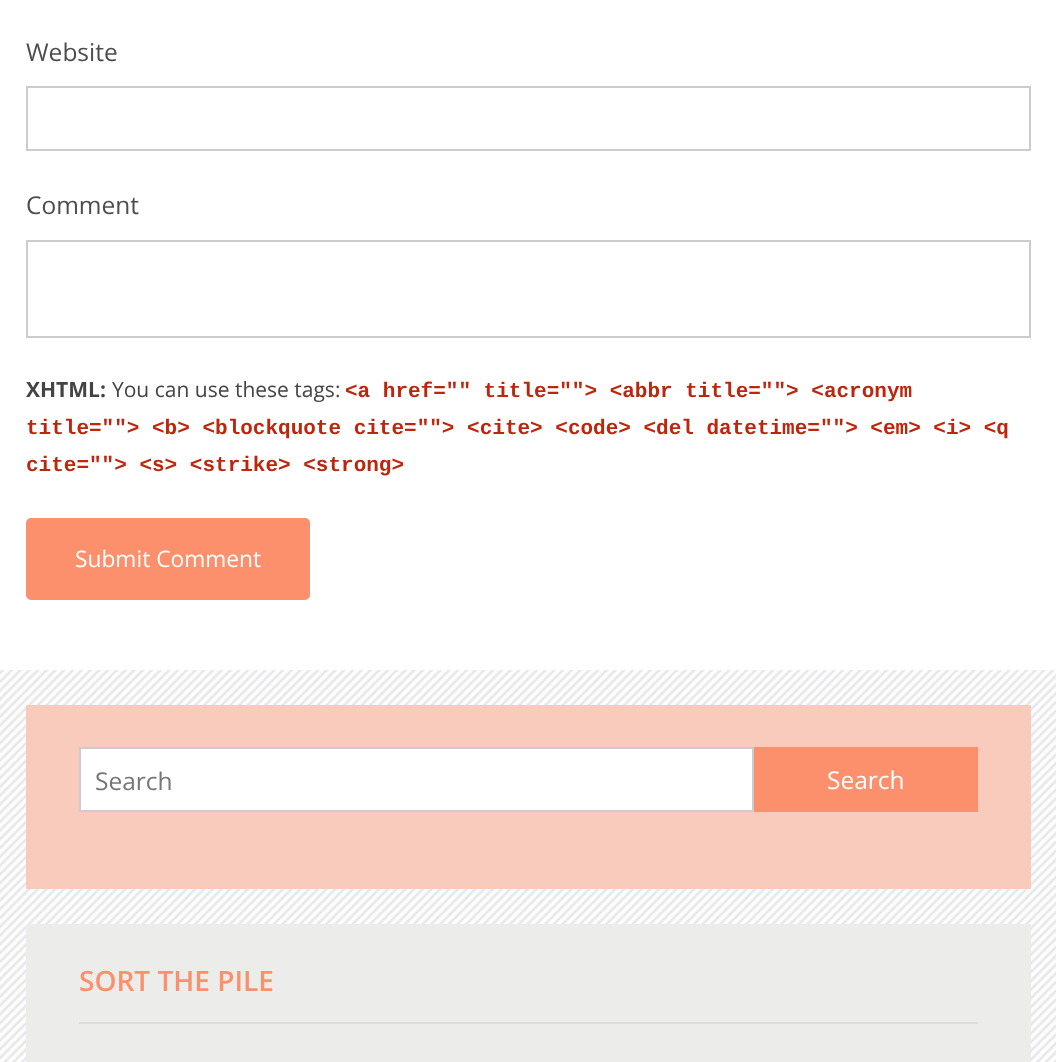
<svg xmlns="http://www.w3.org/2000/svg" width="1056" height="1062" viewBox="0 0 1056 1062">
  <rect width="100%" height="100%" fill="#fff"/>
  <image x="0" y="670" width="1056" height="392" href="img/1.png"/>
  <path d="M27 87h1003v63H27z" fill="none" stroke="#ccc" stroke-width="2"/>
  <path d="M27 241h1003v96H27z" fill="none" stroke="#ccc" stroke-width="2"/>
  <rect x="26" y="518" width="284" height="82" rx="5" fill="#fc906c"/>
  <path d="M26 705h1005v184H26z" fill="#f9cbbc"/>
  <path d="M80 748h673v63H80z" fill="#fff" stroke="#ccc" stroke-width="2"/>
  <path d="M754 747h224v65H754z" fill="#fc906c"/>
  <path d="M26 924h1005v138H26z" fill="#ececea"/>
  <path d="M79 1022h899v2H79z" fill="#ddd"/>
  <g font-family="Open Sans" font-size="24.5" fill="#4d4d4d">
    <text x="26" y="61">Website</text>
    <text x="26" y="214">Comment</text>
  </g>
  <text x="26" y="397" font-family="Open Sans" font-size="21" font-weight="bold" fill="#444">XHTML:</text>
  <text x="112" y="397" font-family="Open Sans" font-size="21" fill="#444">You can use these tags:</text>
  <g font-family="Liberation Mono" font-size="21" font-weight="bold" fill="#bd260d">
    <text x="345" y="397">&lt;a href="" title=""&gt; &lt;abbr title=""&gt; &lt;acronym</text>
    <text x="26" y="434">title=""&gt; &lt;b&gt; &lt;blockquote cite=""&gt; &lt;cite&gt; &lt;code&gt; &lt;del datetime=""&gt; &lt;em&gt; &lt;i&gt; &lt;q</text>
    <text x="26" y="471">cite=""&gt; &lt;s&gt; &lt;strike&gt; &lt;strong&gt;</text>
  </g>
  <text x="75" y="567" font-family="Open Sans" font-size="22.75" fill="#fff">Submit Comment</text>
  <text x="95" y="790" font-family="Open Sans" font-size="24.5" fill="#757575">Search</text>
  <text x="827" y="789" font-family="Open Sans" font-size="24.5" fill="#fff">Search</text>
  <text x="79" y="991" font-family="Open Sans" font-size="28" font-weight="600" fill="#fc906c">SORT THE PILE</text>
</svg>
